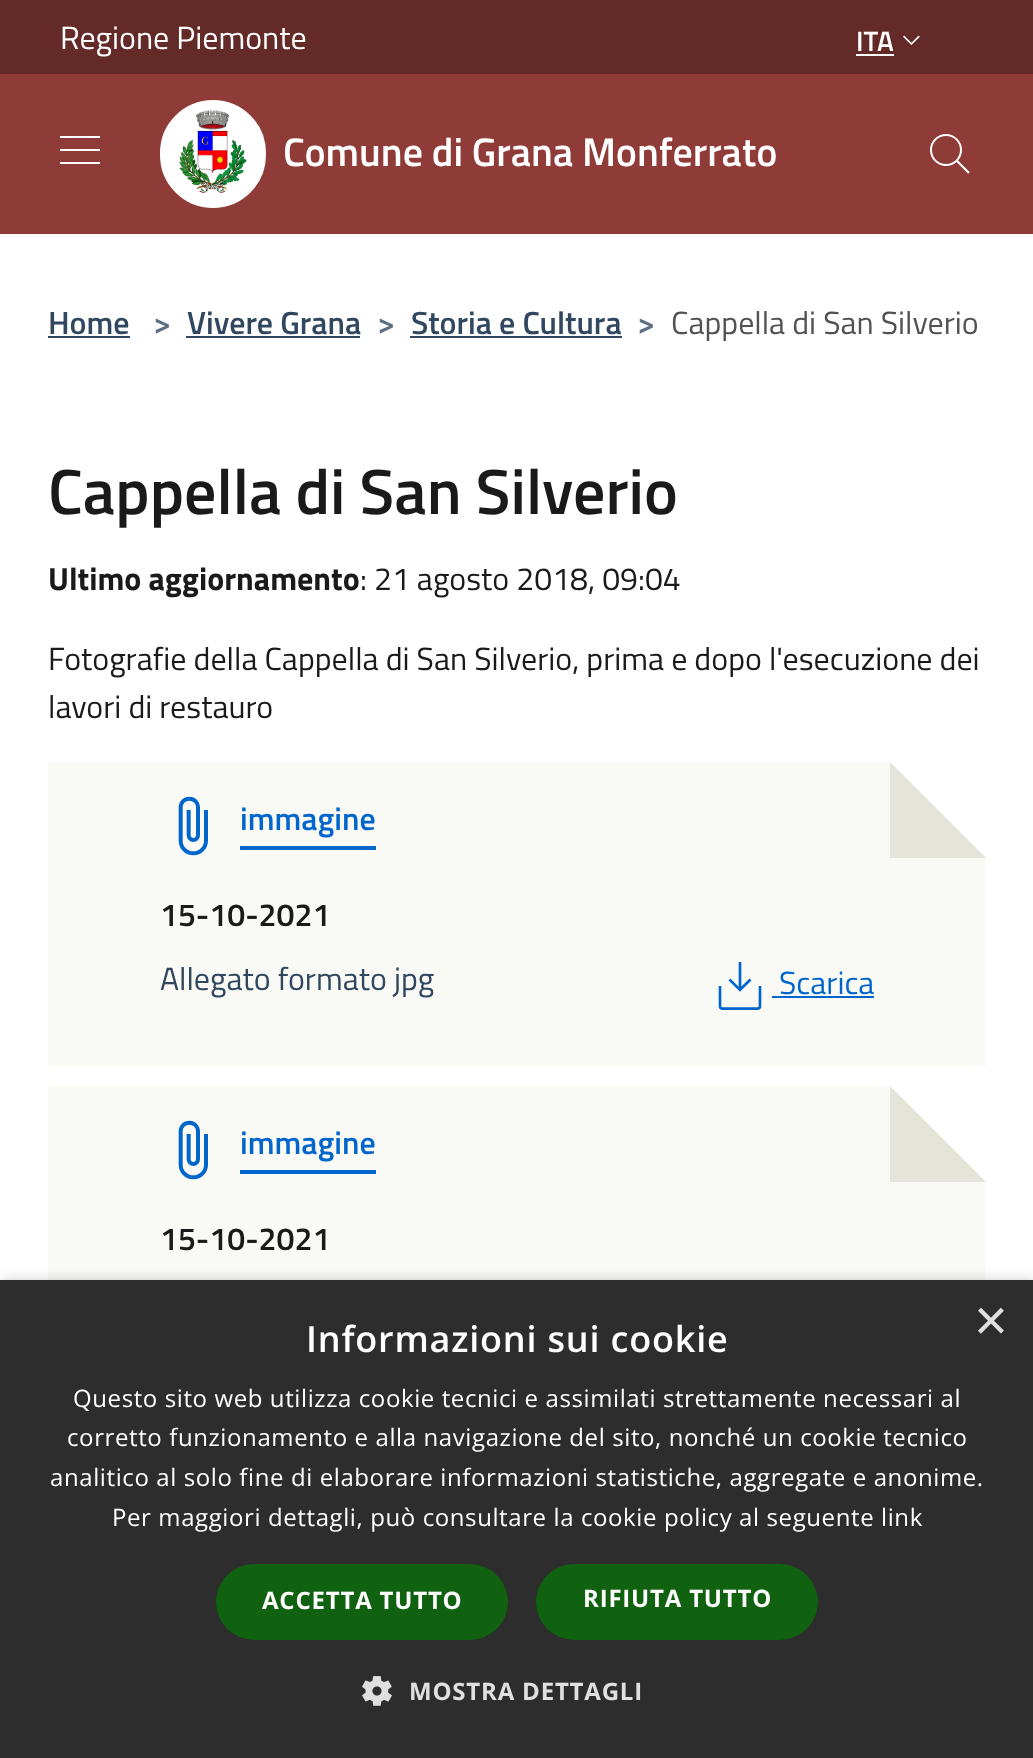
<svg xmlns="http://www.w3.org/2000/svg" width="1033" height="1758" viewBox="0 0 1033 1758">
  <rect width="100%" height="100%" fill="#fff"/>
  <path d="M0 0h1033v74H0z" fill="#642a27"/>
  <path d="M856 54h38v2H856z" fill="#fff"/>
  <image x="903" y="35" width="17" height="10" href="img/1.png"/>
  <path d="M0 74h1033v160H0z" fill="#8f3c38"/>
  <image x="60" y="136" width="40" height="28" href="img/2.png"/>
  <rect x="161" y="101" width="104" height="106" rx="52" fill="#fff" stroke="#fff" stroke-width="2"/>
  <image x="179" y="110" width="68" height="83" href="img/3.png"/>
  <image x="930" y="134" width="40" height="40" href="img/4.png"/>
  <path d="M48 336h82v2H48z" fill="#30475f"/>
  <path d="M186 336h174v2H186z" fill="#30475f"/>
  <path d="M410 336h212v2H410z" fill="#30475f"/>
  <path d="M48 762h938v304H48z" fill="#f9f9f5"/>
  <path d="M986 762V858L890 762Z" fill="#fff"/>
  <image x="178" y="796" width="30" height="60" href="img/5.png"/>
  <path d="M240 846h136v4H240z" fill="#06c"/>
  <path d="M890 858V762L986 858Z" fill="#e4e4db"/>
  <image x="718" y="962" width="44" height="48" href="img/6.png"/>
  <path d="M772 996h102v2H772z" fill="#06c"/>
  <path d="M48 1086h938v194H48z" fill="#f9f9f5"/>
  <path d="M986 1086V1182L890 1086Z" fill="#fff"/>
  <image x="178" y="1120" width="30" height="60" href="img/5.png"/>
  <path d="M240 1170h136v4H240z" fill="#06c"/>
  <path d="M890 1182V1086L986 1182Z" fill="#e4e4db"/>
  <path d="M2 1284h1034v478H2z" fill="#00000059" filter="blur(8px)"/>
  <path d="M0 1280h1033v478H0z" fill="#2d2d2d"/>
  <rect x="216" y="1564" width="292" height="76" rx="38" fill="#106110"/>
  <rect x="536" y="1564" width="282" height="76" rx="38" fill="#106110"/>
  <image x="362" y="1676" width="30" height="30" href="img/7.png"/>
  <text x="60" y="49" font-family="Titillium Web" font-size="32" fill="#fff">Regione Piemonte</text>
  <text x="856" y="51" font-family="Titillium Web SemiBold" font-size="28" font-weight="600" fill="#fff">ITA</text>
  <text x="283" y="166" font-family="Titillium Web SemiBold" font-size="40" font-weight="600" fill="#fff">Comune di Grana Monferrato</text>
  <text x="48" y="334" font-family="Titillium Web SemiBold" font-size="32" font-weight="600" fill="#30475f">Home</text>
  <text x="153" y="334" font-family="Titillium Web SemiBold" font-size="32" font-weight="600" fill="#5d7083">&gt;</text>
  <text x="187" y="334" font-family="Titillium Web SemiBold" font-size="32" font-weight="600" fill="#30475f">Vivere Grana</text>
  <text x="377" y="334" font-family="Titillium Web SemiBold" font-size="32" font-weight="600" fill="#5d7083">&gt;</text>
  <text x="411" y="334" font-family="Titillium Web SemiBold" font-size="32" font-weight="600" fill="#30475f">Storia e Cultura</text>
  <text x="637" y="334" font-family="Titillium Web SemiBold" font-size="32" font-weight="600" fill="#5d7083">&gt;</text>
  <text x="671" y="334" font-family="Titillium Web" font-size="32" fill="#525252">Cappella di San Silverio</text>
  <text x="48" y="514" font-family="Titillium Web SemiBold" font-size="64" font-weight="600" fill="#1a1a1a">Cappella di San Silverio</text>
  <text x="48" y="590" font-family="Titillium Web" font-size="32" font-weight="bold" fill="#1a1a1a">Ultimo aggiornamento</text>
  <g font-family="Titillium Web" font-size="32" fill="#1a1a1a">
    <text x="360" y="590">: 21 agosto 2018, 09:04</text>
    <text x="48" y="670">Fotografie della Cappella di San Silverio, prima e dopo l'esecuzione dei</text>
    <text x="48" y="718">lavori di restauro</text>
  </g>
  <text x="240" y="830" font-family="Titillium Web SemiBold" font-size="32" font-weight="600" fill="#06c">immagine</text>
  <text x="160" y="926" font-family="Titillium Web SemiBold" font-size="32" font-weight="600" fill="#1a1a1a">15-10-2021</text>
  <text x="160" y="990" font-family="Titillium Web" font-size="32" fill="#30475f">Allegato formato jpg</text>
  <text x="779" y="994" font-family="Titillium Web" font-size="32" fill="#06c">Scarica</text>
  <text x="240" y="1154" font-family="Titillium Web SemiBold" font-size="32" font-weight="600" fill="#06c">immagine</text>
  <text x="160" y="1250" font-family="Titillium Web SemiBold" font-size="32" font-weight="600" fill="#1a1a1a">15-10-2021</text>
  <text x="974" y="1340" font-family="Liberation Sans" font-size="58" fill="#e0e0e0">×</text>
  <text x="306" y="1352" font-family="Open Sans" font-size="36" font-weight="600" letter-spacing="0.8" fill="#fff">Informazioni sui cookie</text>
  <g font-family="Open Sans" font-size="24" letter-spacing="0.6" fill="#fff">
    <text x="73" y="1407">Questo sito web utilizza cookie tecnici e assimilati strettamente necessari al</text>
    <text x="67" y="1446">corretto funzionamento e alla navigazione del sito, nonché un cookie tecnico</text>
    <text x="50" y="1486">analitico al solo fine di elaborare informazioni statistiche, aggregate e anonime.</text>
    <text x="112" y="1526">Per maggiori dettagli, può consultare la cookie policy al seguente link</text>
  </g>
  <g font-family="Open Sans" font-size="24" font-weight="bold" letter-spacing="0.8" fill="#fff">
    <text x="262" y="1609">ACCETTA TUTTO</text>
    <text x="583" y="1607">RIFIUTA TUTTO</text>
  </g>
  <text x="409" y="1700" font-family="Open Sans" font-size="24" font-weight="bold" letter-spacing="0.8" fill="#e0e0e0">MOSTRA DETTAGLI</text>
</svg>
